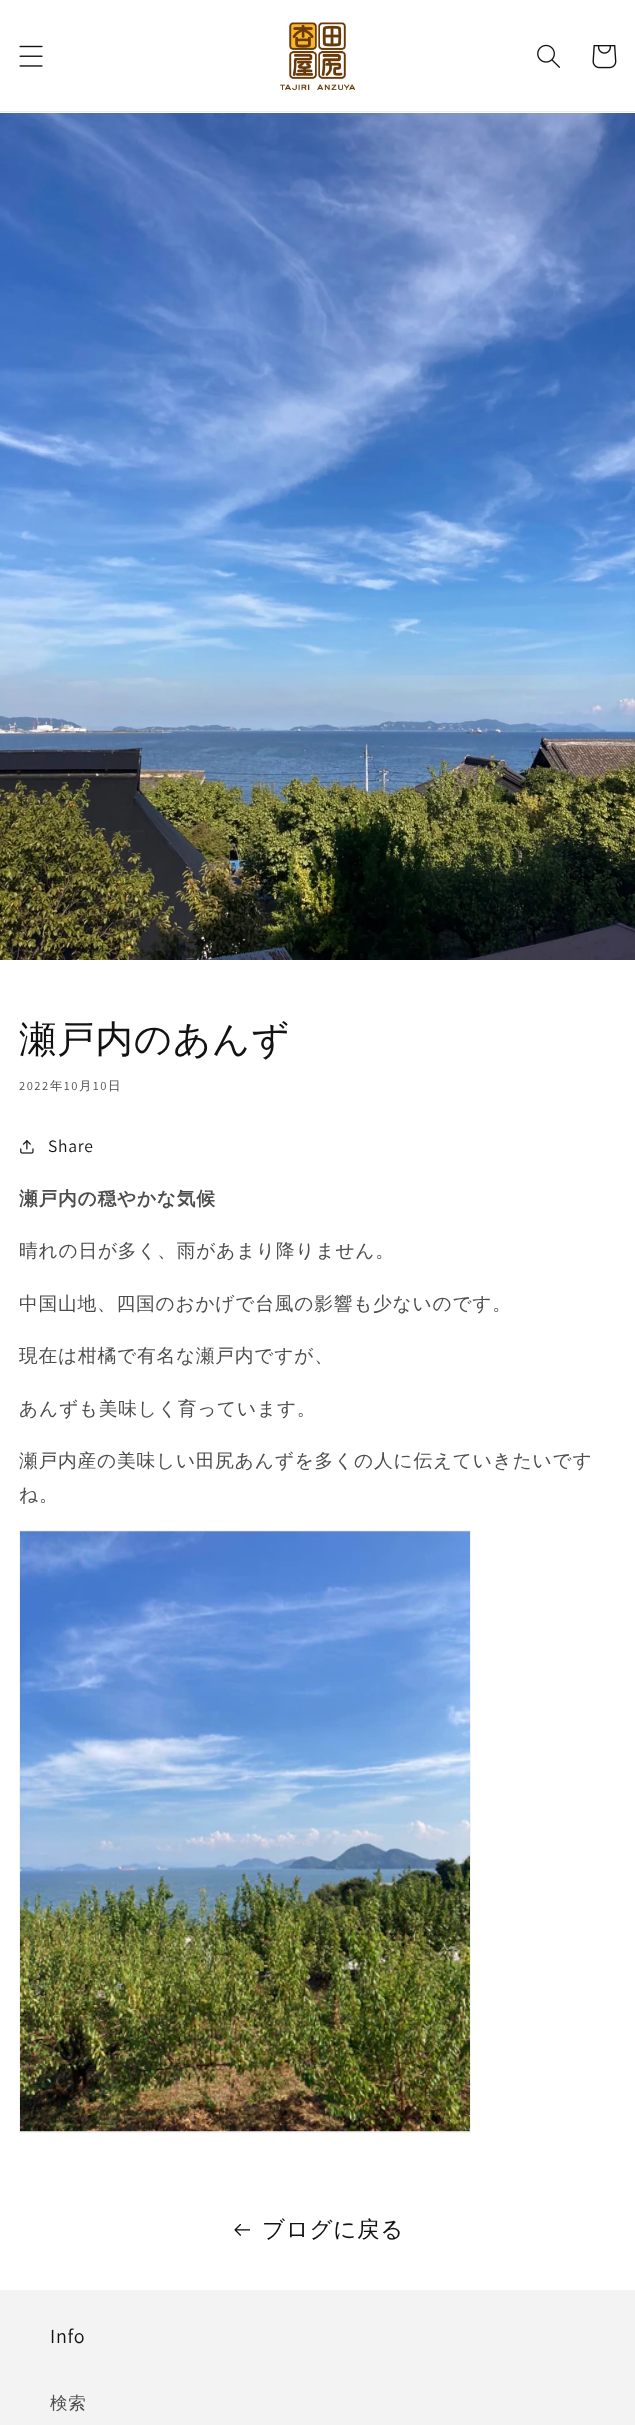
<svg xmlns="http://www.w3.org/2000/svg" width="635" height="2425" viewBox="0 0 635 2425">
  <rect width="100%" height="100%" fill="#fff"/>
  <path d="M0 111h635v1H0z" fill="#ececec"/>
  <image x="19" y="45" width="24" height="22" href="img/1.png"/>
  <image x="280" y="22" width="75" height="68" href="img/2.png"/>
  <image x="537" y="44" width="23" height="24" href="img/3.png"/>
  <image x="592" y="45" width="25" height="24" href="img/4.png"/>
  <image x="0" y="113" width="635" height="847" href="img/5.png"/>
  <image x="20" y="1140" width="14" height="14" href="img/6.png"/>
  <path d="M19.5 1530.5h451v602H19.5z" fill="none" stroke="#f3f3f3"/>
  <image x="20" y="1531" width="450" height="601" href="img/7.png"/>
  <image x="234" y="2224" width="16" height="12" href="img/8.png"/>
  <path d="M0 2290h635v135H0z" fill="#f3f3f3"/>
  <text x="19" y="1052" font-family="WenQuanYi Zen Hei" font-size="37.5" font-weight="500" letter-spacing="0.75" fill="#121212">瀬戸内のあんず</text>
  <text x="19" y="1090" font-family="Assistant" font-size="12.5" letter-spacing="1.5" fill="#4d4d4d">2022</text>
  <text x="50" y="1090" font-family="WenQuanYi Zen Hei" font-size="12.5" font-weight="500" letter-spacing="1.5" fill="#4d4d4d">年</text>
  <text x="64" y="1090" font-family="Assistant" font-size="12.5" letter-spacing="1.5" fill="#4d4d4d">10</text>
  <text x="79" y="1090" font-family="WenQuanYi Zen Hei" font-size="12.5" font-weight="500" letter-spacing="1.5" fill="#4d4d4d">月</text>
  <text x="93" y="1090" font-family="Assistant" font-size="12.5" letter-spacing="1.5" fill="#4d4d4d">10</text>
  <text x="108" y="1090" font-family="WenQuanYi Zen Hei" font-size="12.5" font-weight="500" letter-spacing="1.5" fill="#4d4d4d">日</text>
  <text x="48" y="1152" font-family="Assistant" font-size="17.5" letter-spacing="0.75" fill="#121212">Share</text>
  <text x="19" y="1205" font-family="WenQuanYi Zen Hei" font-size="18.75" font-weight="bold" letter-spacing="0.75" fill="#4d4d4d">瀬戸内の穏やかな気候</text>
  <g font-family="WenQuanYi Zen Hei" font-size="18.75" font-weight="500" letter-spacing="0.75" fill="#4d4d4d">
    <text x="19" y="1257">晴れの日が多く、雨があまり降りません。</text>
    <text x="19" y="1310">中国山地、四国のおかげで台風の影響も少ないのです。</text>
    <text x="19" y="1362">現在は柑橘で有名な瀬戸内ですが、</text>
    <text x="19" y="1415">あんずも美味しく育っています。</text>
    <text x="19" y="1467">瀬戸内産の美味しい田尻あんずを多くの人に伝えていきたいです</text>
    <text x="19" y="1501">ね。</text>
  </g>
  <text x="262" y="2237" font-family="WenQuanYi Zen Hei" font-size="22.5" font-weight="500" letter-spacing="0.75" fill="#121212">ブログに戻る</text>
  <text x="50" y="2343" font-family="Assistant" font-size="20" letter-spacing="0.75" fill="#121212">Info</text>
  <text x="50" y="2409" font-family="WenQuanYi Zen Hei" font-size="17.5" font-weight="500" letter-spacing="0.75" fill="#4d4d4d">検索</text>
</svg>
